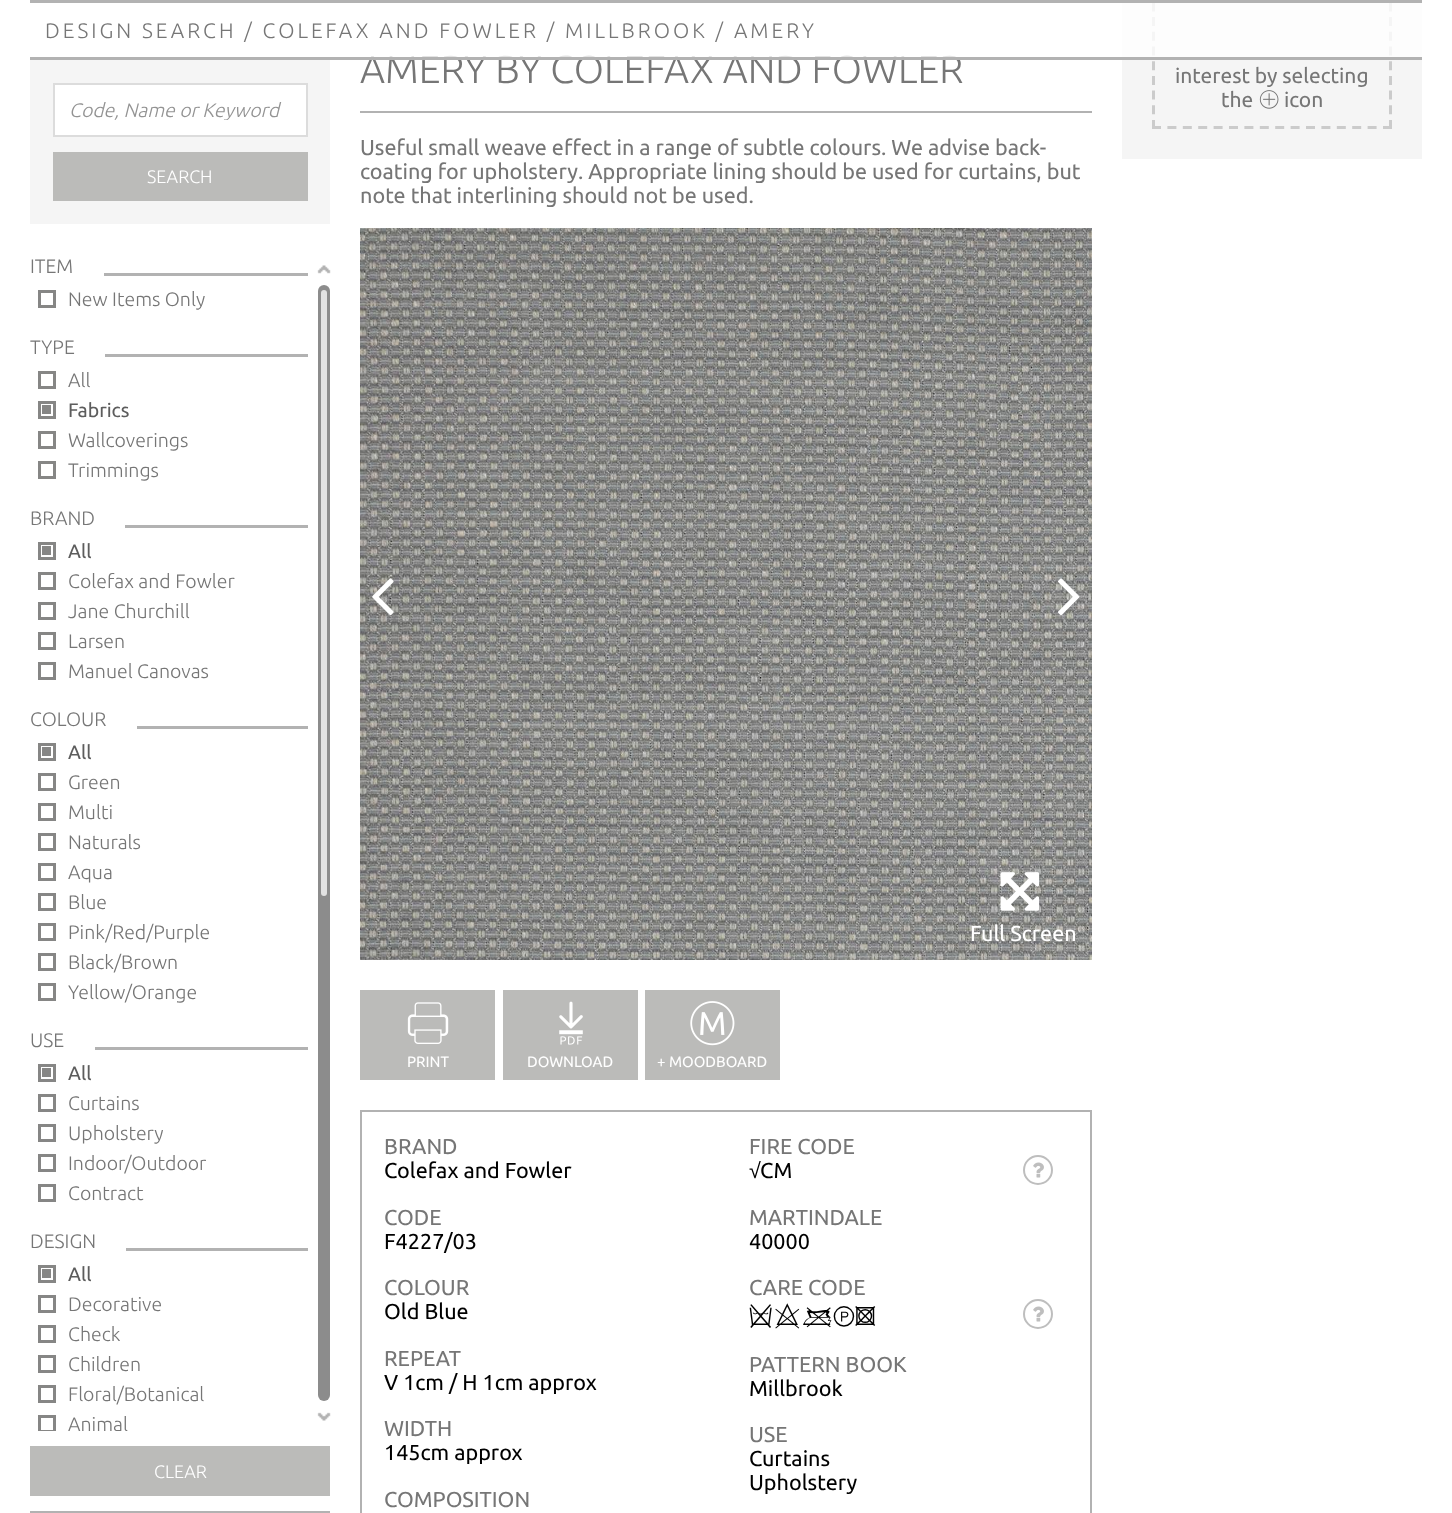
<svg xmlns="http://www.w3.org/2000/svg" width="1452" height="1513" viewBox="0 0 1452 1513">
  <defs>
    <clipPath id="clip1"><path d="M30 255h300v1176H30z"/></clipPath>
    <clipPath id="clip2"><path d="M69 99h222v21H69z"/></clipPath>
  </defs>
  <rect width="100%" height="100%" fill="#fff"/>
  <path d="M360 111h732v2H360z" fill="#b2b2b2"/>
  <image x="360" y="228" width="732" height="732" href="img/3.png"/>
  <image x="372" y="578" width="22" height="38" href="img/1.png"/>
  <image x="1058" y="578" width="22" height="38" href="img/2.png"/>
  <image x="1000" y="872" width="40" height="39" href="img/4.png"/>
  <path d="M360 990h135v90H360z" fill="#bbbbb9"/>
  <image x="407" y="1002" width="42" height="42" href="img/5.png"/>
  <path d="M503 990h135v90H503z" fill="#bbbbb9"/>
  <image x="559" y="1001" width="24" height="44" href="img/6.png"/>
  <path d="M645 990h135v90H645z" fill="#bbbbb9"/>
  <image x="690" y="1001" width="45" height="45" href="img/7.png"/>
  <path d="M361 1111h730v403H361z" fill="none" stroke="#b2b2b2" stroke-width="2"/>
  <circle cx="1038" cy="1170" r="14" fill="none" stroke="#bebebe" stroke-width="2"/>
  <image x="1033" y="1162" width="11" height="16" href="img/8.png"/>
  <circle cx="1038" cy="1314" r="14" fill="none" stroke="#bebebe" stroke-width="2"/>
  <image x="1033" y="1306" width="11" height="16" href="img/8.png"/>
  <path d="M1122 3h300v156H1122z" fill="#f5f5f5"/>
  <path d="M1390.5-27V129" fill="none" stroke="#cbcbcb" stroke-width="3" stroke-dasharray="9 5.7"/>
  <path d="M1152 127.5H1392" fill="none" stroke="#cbcbcb" stroke-width="3" stroke-dasharray="9 6.4"/>
  <path d="M1153.5-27V129" fill="none" stroke="#cbcbcb" stroke-width="3" stroke-dasharray="9 5.7"/>
  <image x="1259" y="90" width="20" height="19" href="img/9.png"/>
  <path d="M30 1511h300v2H30z" fill="#b2b2b2"/>
  <path d="M30 60h300v164H30z" fill="#f5f5f5"/>
  <path d="M54 84h253v52H54z" fill="#fff" stroke="#dcdcdc" stroke-width="2"/>
  <path d="M53 152h255v49H53z" fill="#bbbbb9"/>
  <path d="M104 273h204v3H104z" fill="#b2b2b2"/>
  <path d="M39.5 291.5h15v15H39.5z" fill="none" stroke="#868685" stroke-width="3"/>
  <path d="M105 354h203v3H105z" fill="#b2b2b2"/>
  <path d="M39.5 372.5h15v15H39.5z" fill="none" stroke="#868685" stroke-width="3"/>
  <path d="M42 405h9v9H42z" fill="#868685"/>
  <path d="M39.5 402.5h15v15H39.5z" fill="none" stroke="#868685" stroke-width="3"/>
  <path d="M39.5 432.5h15v15H39.5z" fill="none" stroke="#868685" stroke-width="3"/>
  <path d="M39.5 462.5h15v15H39.5z" fill="none" stroke="#868685" stroke-width="3"/>
  <path d="M125 525h183v3H125z" fill="#b2b2b2"/>
  <path d="M42 546h9v9H42z" fill="#868685"/>
  <path d="M39.5 543.5h15v15H39.5z" fill="none" stroke="#868685" stroke-width="3"/>
  <path d="M39.5 573.5h15v15H39.5z" fill="none" stroke="#868685" stroke-width="3"/>
  <path d="M39.5 603.5h15v15H39.5z" fill="none" stroke="#868685" stroke-width="3"/>
  <path d="M39.5 633.5h15v15H39.5z" fill="none" stroke="#868685" stroke-width="3"/>
  <path d="M39.5 663.5h15v15H39.5z" fill="none" stroke="#868685" stroke-width="3"/>
  <path d="M137 726h171v3H137z" fill="#b2b2b2"/>
  <path d="M42 747h9v9H42z" fill="#868685"/>
  <path d="M39.5 744.5h15v15H39.5z" fill="none" stroke="#868685" stroke-width="3"/>
  <path d="M39.5 774.5h15v15H39.5z" fill="none" stroke="#868685" stroke-width="3"/>
  <path d="M39.5 804.5h15v15H39.5z" fill="none" stroke="#868685" stroke-width="3"/>
  <path d="M39.5 834.5h15v15H39.5z" fill="none" stroke="#868685" stroke-width="3"/>
  <path d="M39.5 864.5h15v15H39.5z" fill="none" stroke="#868685" stroke-width="3"/>
  <path d="M39.5 894.5h15v15H39.5z" fill="none" stroke="#868685" stroke-width="3"/>
  <path d="M39.5 924.5h15v15H39.5z" fill="none" stroke="#868685" stroke-width="3"/>
  <path d="M39.5 954.5h15v15H39.5z" fill="none" stroke="#868685" stroke-width="3"/>
  <path d="M39.5 984.5h15v15H39.5z" fill="none" stroke="#868685" stroke-width="3"/>
  <path d="M95 1047h213v3H95z" fill="#b2b2b2"/>
  <path d="M42 1068h9v9H42z" fill="#868685"/>
  <path d="M39.5 1065.5h15v15H39.5z" fill="none" stroke="#868685" stroke-width="3"/>
  <path d="M39.5 1095.5h15v15H39.5z" fill="none" stroke="#868685" stroke-width="3"/>
  <path d="M39.5 1125.5h15v15H39.5z" fill="none" stroke="#868685" stroke-width="3"/>
  <path d="M39.5 1155.5h15v15H39.5z" fill="none" stroke="#868685" stroke-width="3"/>
  <path d="M39.5 1185.5h15v15H39.5z" fill="none" stroke="#868685" stroke-width="3"/>
  <path d="M126 1248h182v3H126z" fill="#b2b2b2"/>
  <path d="M42 1269h9v9H42z" fill="#868685"/>
  <path d="M39.5 1266.5h15v15H39.5z" fill="none" stroke="#868685" stroke-width="3"/>
  <path d="M39.5 1296.5h15v15H39.5z" fill="none" stroke="#868685" stroke-width="3"/>
  <path d="M39.5 1326.5h15v15H39.5z" fill="none" stroke="#868685" stroke-width="3"/>
  <path d="M39.5 1356.5h15v15H39.5z" fill="none" stroke="#868685" stroke-width="3"/>
  <path d="M39.5 1386.5h15v15H39.5z" fill="none" stroke="#868685" stroke-width="3"/>
  <g clip-path="url(#clip1)">
    <path d="M39.5 1416.5h15v15H39.5z" fill="none" stroke="#868685" stroke-width="3"/>
  </g>
  <image x="317" y="265" width="14" height="9" href="img/10.png"/>
  <rect x="318" y="285" width="12" height="1116" rx="6" fill="#8c8c8c"/>
  <rect x="321" y="290" width="6" height="606" rx="3" fill="#e2e2e2"/>
  <image x="317" y="1412" width="14" height="9" href="img/11.png"/>
  <path d="M30 1446h300v50H30z" fill="#bbbbb9"/>
  <text x="360" y="83" font-family="Ubuntu" font-size="39" font-weight="300" fill="#767676">AMERY BY COLEFAX AND FOWLER</text>
  <path d="M369 2h1053v58H369z" fill="#ffffffcc"/>
  <text x="45" y="38" font-family="Ubuntu" font-size="21" font-weight="300" letter-spacing="3" fill="#767676">DESIGN SEARCH / COLEFAX AND FOWLER / MILLBROOK / AMERY</text>
  <path d="M30 57h1392v3H30z" fill="#b2b2b2"/>
  <path d="M30 0h1392v3H30z" fill="#b2b2b2"/>
  <g font-family="Ubuntu" font-size="21.6" fill="#767676">
    <text x="360" y="155">Useful small weave effect in a range of subtle colours. We advise back-</text>
    <text x="360" y="179">coating for upholstery. Appropriate lining should be used for curtains, but</text>
    <text x="360" y="203">note that interlining should not be used.</text>
  </g>
  <text x="970" y="941" font-family="Ubuntu" font-size="21.6" fill="#fff">Full Screen</text>
  <g font-family="Ubuntu" font-size="15" fill="#fff">
    <text x="407" y="1067">PRINT</text>
    <text x="527" y="1067">DOWNLOAD</text>
    <text x="657" y="1067">+ MOODBOARD</text>
  </g>
  <text x="384" y="1154" font-family="Ubuntu" font-size="21.6" fill="#767676">BRAND</text>
  <text x="384" y="1178" font-family="Ubuntu" font-size="21.6" fill="#000">Colefax and Fowler</text>
  <text x="749" y="1154" font-family="Ubuntu" font-size="21.6" fill="#767676">FIRE CODE</text>
  <text x="749" y="1178" font-family="Liberation Sans" font-size="21.6" fill="#000">√</text>
  <text x="760" y="1178" font-family="Ubuntu" font-size="21.6" fill="#000">CM</text>
  <text x="384" y="1225" font-family="Ubuntu" font-size="21.6" fill="#767676">CODE</text>
  <text x="384" y="1249" font-family="Ubuntu" font-size="21.6" fill="#000">F4227/03</text>
  <text x="749" y="1225" font-family="Ubuntu" font-size="21.6" fill="#767676">MARTINDALE</text>
  <text x="749" y="1249" font-family="Ubuntu" font-size="21.6" fill="#000">40000</text>
  <text x="384" y="1295" font-family="Ubuntu" font-size="21.6" fill="#767676">COLOUR</text>
  <text x="384" y="1319" font-family="Ubuntu" font-size="21.6" fill="#000">Old Blue</text>
  <text x="749" y="1295" font-family="Ubuntu" font-size="21.6" fill="#767676">CARE CODE</text>
  <text x="749" y="1325" font-family="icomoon" font-size="30" fill="#000">Q8&lt;T3</text>
  <text x="384" y="1366" font-family="Ubuntu" font-size="21.6" fill="#767676">REPEAT</text>
  <text x="384" y="1390" font-family="Ubuntu" font-size="21.6" fill="#000">V 1cm / H 1cm approx</text>
  <text x="749" y="1372" font-family="Ubuntu" font-size="21.6" fill="#767676">PATTERN BOOK</text>
  <text x="749" y="1396" font-family="Ubuntu" font-size="21.6" fill="#000">Millbrook</text>
  <text x="384" y="1436" font-family="Ubuntu" font-size="21.6" fill="#767676">WIDTH</text>
  <text x="384" y="1460" font-family="Ubuntu" font-size="21.6" fill="#000">145cm approx</text>
  <text x="749" y="1442" font-family="Ubuntu" font-size="21.6" fill="#767676">USE</text>
  <g font-family="Ubuntu" font-size="21.6" fill="#000">
    <text x="749" y="1466">Curtains</text>
    <text x="749" y="1490">Upholstery</text>
  </g>
  <text x="384" y="1507" font-family="Ubuntu" font-size="21.6" fill="#767676">COMPOSITION</text>
  <g font-family="Ubuntu" font-size="21" fill="#767676">
    <text x="1175" y="83">interest by selecting</text>
    <text x="1221" y="107">the</text>
    <text x="1284" y="107">icon</text>
  </g>
  <g clip-path="url(#clip2)">
    <text x="69" y="117" font-family="Ubuntu" font-size="19.5" font-weight="300" font-style="italic" fill="#939393">Code, Name or Keyword</text>
  </g>
  <text x="147" y="183" font-family="Ubuntu" font-size="18" font-weight="300" fill="#fff">SEARCH</text>
  <g font-family="Ubuntu" font-size="19.5" font-weight="300" fill="#767676">
    <text x="30" y="273">ITEM</text>
    <text x="68" y="306">New Items Only</text>
    <text x="30" y="354">TYPE</text>
    <text x="68" y="387">All</text>
  </g>
  <text x="68" y="417" font-family="Ubuntu" font-size="19.5" fill="#5d5d5d">Fabrics</text>
  <g font-family="Ubuntu" font-size="19.5" font-weight="300" fill="#767676">
    <text x="68" y="447">Wallcoverings</text>
    <text x="68" y="477">Trimmings</text>
    <text x="30" y="525">BRAND</text>
  </g>
  <text x="68" y="558" font-family="Ubuntu" font-size="19.5" fill="#5d5d5d">All</text>
  <g font-family="Ubuntu" font-size="19.5" font-weight="300" fill="#767676">
    <text x="68" y="588">Colefax and Fowler</text>
    <text x="68" y="618">Jane Churchill</text>
    <text x="68" y="648">Larsen</text>
    <text x="68" y="678">Manuel Canovas</text>
    <text x="30" y="726">COLOUR</text>
  </g>
  <text x="68" y="759" font-family="Ubuntu" font-size="19.5" fill="#5d5d5d">All</text>
  <g font-family="Ubuntu" font-size="19.5" font-weight="300" fill="#767676">
    <text x="68" y="789">Green</text>
    <text x="68" y="819">Multi</text>
    <text x="68" y="849">Naturals</text>
    <text x="68" y="879">Aqua</text>
    <text x="68" y="909">Blue</text>
    <text x="68" y="939">Pink/Red/Purple</text>
    <text x="68" y="969">Black/Brown</text>
    <text x="68" y="999">Yellow/Orange</text>
    <text x="30" y="1047">USE</text>
  </g>
  <text x="68" y="1080" font-family="Ubuntu" font-size="19.5" fill="#5d5d5d">All</text>
  <g font-family="Ubuntu" font-size="19.5" font-weight="300" fill="#767676">
    <text x="68" y="1110">Curtains</text>
    <text x="68" y="1140">Upholstery</text>
    <text x="68" y="1170">Indoor/Outdoor</text>
    <text x="68" y="1200">Contract</text>
    <text x="30" y="1248">DESIGN</text>
  </g>
  <text x="68" y="1281" font-family="Ubuntu" font-size="19.5" fill="#5d5d5d">All</text>
  <g font-family="Ubuntu" font-size="19.5" font-weight="300" fill="#767676">
    <text x="68" y="1311">Decorative</text>
    <text x="68" y="1341">Check</text>
    <text x="68" y="1371">Children</text>
    <text x="68" y="1401">Floral/Botanical</text>
  </g>
  <g clip-path="url(#clip1)">
    <text x="68" y="1431" font-family="Ubuntu" font-size="19.5" font-weight="300" fill="#767676">Animal</text>
  </g>
  <text x="154" y="1478" font-family="Ubuntu" font-size="18" font-weight="300" fill="#fff">CLEAR</text>
</svg>
